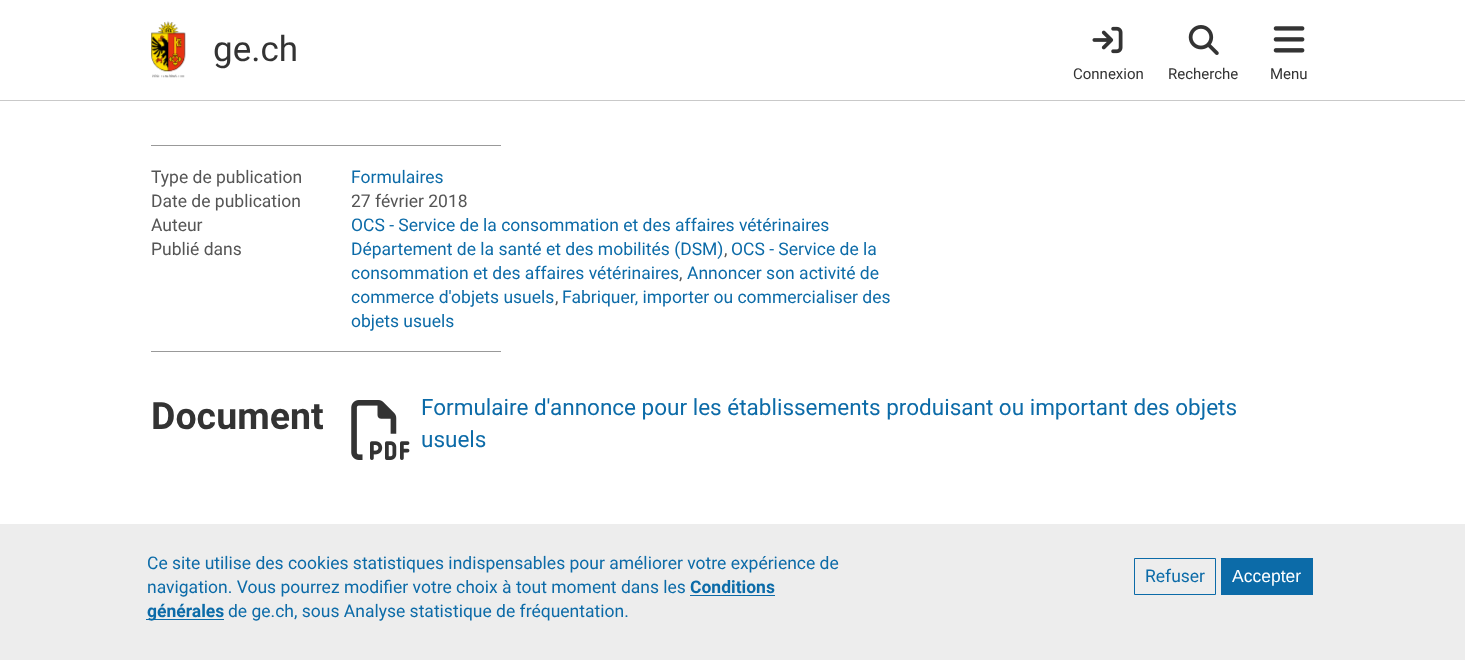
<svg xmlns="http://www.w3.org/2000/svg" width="1465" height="660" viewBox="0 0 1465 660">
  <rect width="100%" height="100%" fill="#fff"/>
  <path d="M0 100h1465v1H0z" fill="#c9c9c9"/>
  <image x="151" y="21" width="35" height="57" href="img/1.png"/>
  <image x="1092" y="26" width="31" height="28" href="img/2.png"/>
  <image x="1188" y="25" width="31" height="30" href="img/3.png"/>
  <image x="1273" y="26" width="32" height="27" href="img/4.png"/>
  <path d="M151 145h350v1H151z" fill="#999"/>
  <path d="M151 351h350v1H151z" fill="#999"/>
  <image x="351" y="400" width="59" height="60" href="img/5.png"/>
  <path d="M0 524h1465v136H0z" fill="#ededed"/>
  <path d="M690 595h85v1H690z" fill="#0c6ba8"/>
  <path d="M146 619h78v1H146z" fill="#0c6ba8"/>
  <path d="M1134.5 558.5h81v36H1134.5z" fill="none" stroke="#0c6ba8"/>
  <path d="M1221 558h92v37H1221z" fill="#0c6ba8"/>
  <text x="213" y="61" font-family="Roboto" font-size="35" fill="#333">ge.ch</text>
  <g font-family="Roboto" font-size="15" fill="#333">
    <text x="1073" y="79">Connexion</text>
    <text x="1168" y="79">Recherche</text>
    <text x="1270" y="79">Menu</text>
  </g>
  <text x="151" y="183" font-family="Roboto" font-size="17.5" fill="#555">Type de publication</text>
  <text x="351" y="183" font-family="Roboto" font-size="17.5" fill="#0c6ba8">Formulaires</text>
  <g font-family="Roboto" font-size="17.5" fill="#555">
    <text x="151" y="207">Date de publication</text>
    <text x="351" y="207">27 février 2018</text>
    <text x="151" y="231">Auteur</text>
  </g>
  <text x="351" y="231" font-family="Roboto" font-size="17.5" fill="#0c6ba8">OCS - Service de la consommation et des affaires vétérinaires</text>
  <text x="151" y="255" font-family="Roboto" font-size="17.5" fill="#555">Publié dans</text>
  <text x="351" y="255" font-family="Roboto" font-size="17.5" fill="#0c6ba8">Département de la santé et des mobilités (DSM)</text>
  <text x="724" y="255" font-family="Roboto" font-size="17.5" fill="#555">,</text>
  <g font-family="Roboto" font-size="17.5" fill="#0c6ba8">
    <text x="731" y="255">OCS - Service de la</text>
    <text x="351" y="279">consommation et des affaires vétérinaires</text>
  </g>
  <text x="679" y="279" font-family="Roboto" font-size="17.5" fill="#555">,</text>
  <g font-family="Roboto" font-size="17.5" fill="#0c6ba8">
    <text x="687" y="279">Annoncer son activité de</text>
    <text x="351" y="303">commerce d'objets usuels</text>
  </g>
  <text x="555" y="303" font-family="Roboto" font-size="17.5" fill="#555">,</text>
  <g font-family="Roboto" font-size="17.5" fill="#0c6ba8">
    <text x="562" y="303">Fabriquer, importer ou commercialiser des</text>
    <text x="351" y="327">objets usuels</text>
  </g>
  <text x="151" y="429" font-family="Roboto" font-size="37.5" font-weight="bold" fill="#333">Document</text>
  <g font-family="Roboto" font-size="22.5" fill="#0c6ba8">
    <text x="421" y="415">Formulaire d'annonce pour les établissements produisant ou important des objets</text>
    <text x="421" y="447">usuels</text>
  </g>
  <g font-family="Roboto" font-size="17.5" fill="#0c6ba8">
    <text x="147" y="569">Ce site utilise des cookies statistiques indispensables pour améliorer votre expérience de</text>
    <text x="147" y="593">navigation. Vous pourrez modifier votre choix à tout moment dans les</text>
  </g>
  <g font-family="Roboto" font-size="17.5" font-weight="bold" fill="#0c6ba8">
    <text x="690" y="593">Conditions</text>
    <text x="147" y="617">générales</text>
  </g>
  <g font-family="Roboto" font-size="17.5" fill="#0c6ba8">
    <text x="228" y="617">de ge.ch, sous Analyse statistique de fréquentation.</text>
    <text x="1145" y="582">Refuser</text>
  </g>
  <text x="1232" y="582" font-family="Liberation Sans" font-size="17.5" fill="#fff">Accepter</text>
</svg>
